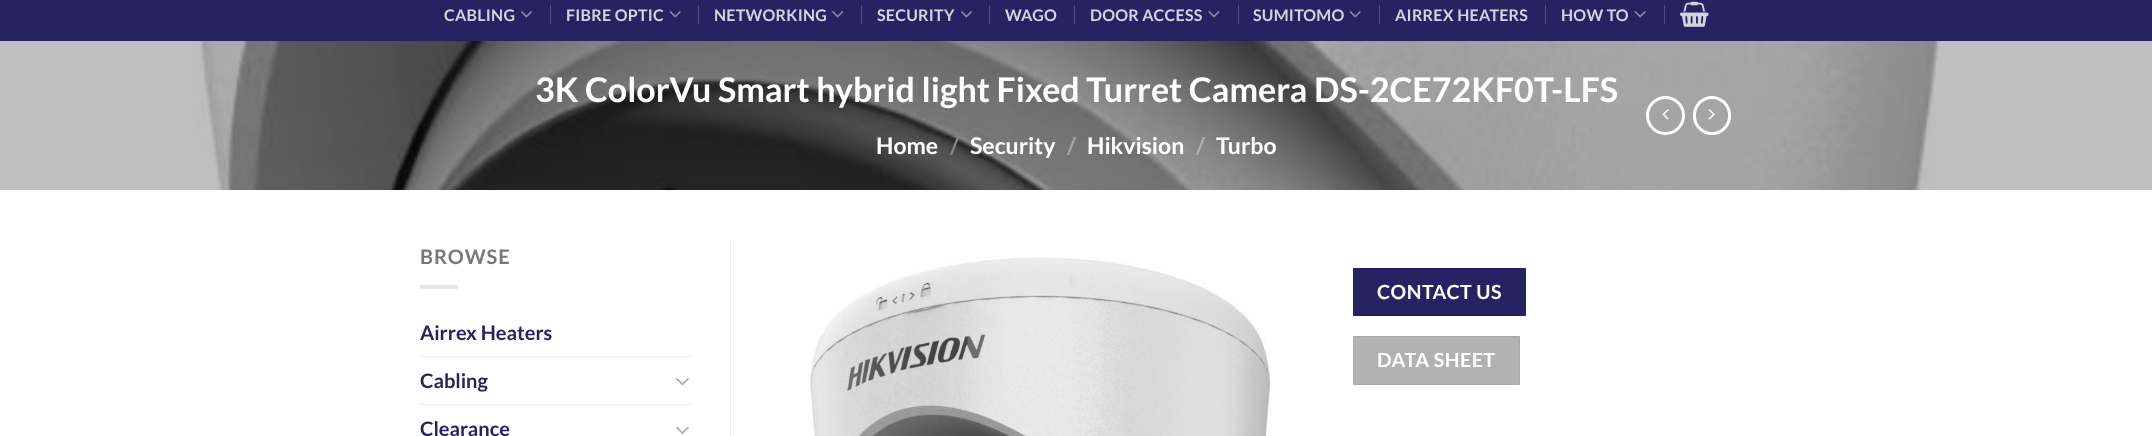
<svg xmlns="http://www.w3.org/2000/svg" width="2152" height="436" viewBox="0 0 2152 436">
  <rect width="100%" height="100%" fill="#fff"/>
  <path d="M0 0h2152v41H0z" fill="#272262"/>
  <image x="521" y="11" width="11" height="7" href="img/1.png"/>
  <path d="M550 5h1v19H550z" fill="#524e81"/>
  <image x="669" y="11" width="12" height="7" href="img/2.png"/>
  <path d="M698 5h1v19H698z" fill="#524e81"/>
  <image x="832" y="11" width="12" height="7" href="img/3.png"/>
  <path d="M861 5h1v19H861z" fill="#524e81"/>
  <image x="961" y="11" width="11" height="7" href="img/1.png"/>
  <path d="M989 5h1v19H989z" fill="#524e81"/>
  <path d="M1074 5h1v19H1074z" fill="#524e81"/>
  <image x="1208" y="11" width="12" height="7" href="img/4.png"/>
  <path d="M1238 5h1v19H1238z" fill="#524e81"/>
  <image x="1349" y="11" width="12" height="7" href="img/2.png"/>
  <path d="M1379 5h1v19H1379z" fill="#524e81"/>
  <path d="M1545 5h1v19H1545z" fill="#524e81"/>
  <image x="1634" y="11" width="12" height="7" href="img/2.png"/>
  <path d="M1664 5h1v19H1664z" fill="#524e81"/>
  <image x="1680" y="1" width="29" height="26" href="img/5.png"/>
  <image x="0" y="41" width="2152" height="149" href="img/6.png"/>
  <circle cx="1665.5" cy="115.5" r="18" fill="none" stroke="#fff" stroke-width="3"/>
  <image x="1662" y="109" width="7" height="11" href="img/7.png"/>
  <rect x="1694.5" y="97.5" width="35" height="36" rx="17.5" fill="none" stroke="#fff" stroke-width="3"/>
  <image x="1708" y="109" width="7" height="11" href="img/8.png"/>
  <path d="M420 285h38v4H420z" fill="#e6e6e6"/>
  <path d="M420 356h273v1H420z" fill="#ececec"/>
  <image x="676" y="378" width="13" height="8" href="img/9.png"/>
  <path d="M420 404h273v1H420z" fill="#ececec"/>
  <image x="676" y="426" width="13" height="9" href="img/10.png"/>
  <path d="M730 240h1v196H730z" fill="#ececec"/>
  <image x="810" y="257" width="461" height="179" href="img/11.png"/>
  <path d="M1353.5 268.5h172v47H1353.5z" fill="#272262" stroke="#25205d"/>
  <path d="M1353.5 336.5h166v48H1353.5z" fill="#b3b2b2" stroke="#aaa9a9"/>
  <g font-family="Lato" font-size="16" font-weight="bold" letter-spacing="0.25" fill="#d4d3e0">
    <text x="444" y="21">CABLING</text>
    <text x="566" y="21">FIBRE OPTIC</text>
    <text x="714" y="21">NETWORKING</text>
    <text x="877" y="21">SECURITY</text>
    <text x="1005" y="21">WAGO</text>
    <text x="1090" y="21">DOOR ACCESS</text>
    <text x="1253" y="21">SUMITOMO</text>
    <text x="1395" y="21">AIRREX HEATERS</text>
    <text x="1561" y="21">HOW TO</text>
  </g>
  <text x="535" y="102" font-family="Lato" font-size="34" font-weight="bold" fill="#fff">3K ColorVu Smart hybrid light Fixed Turret Camera DS-2CE72KF0T-LFS</text>
  <text x="876" y="154" font-family="Lato" font-size="23" font-weight="bold" fill="#fff">Home</text>
  <text x="950" y="154" font-family="Lato" font-size="23" font-weight="bold" fill="#878787">/</text>
  <text x="970" y="154" font-family="Lato" font-size="23" font-weight="bold" fill="#fff">Security</text>
  <text x="1067" y="154" font-family="Lato" font-size="23" font-weight="bold" fill="#a5a5a5">/</text>
  <text x="1087" y="154" font-family="Lato" font-size="23" font-weight="bold" fill="#fff">Hikvision</text>
  <text x="1196" y="154" font-family="Lato" font-size="23" font-weight="bold" fill="#b0b0b0">/</text>
  <text x="1216" y="154" font-family="Lato" font-size="23" font-weight="bold" fill="#fff">Turbo</text>
  <text x="420" y="264" font-family="Lato" font-size="20" font-weight="bold" letter-spacing="1" fill="#777">BROWSE</text>
  <g font-family="Lato" font-size="20" font-weight="bold" fill="#272262">
    <text x="420" y="340">Airrex Heaters</text>
    <text x="420" y="388">Cabling</text>
    <text x="420" y="436">Clearance</text>
  </g>
  <g font-family="Lato" font-size="19.5" font-weight="bold" letter-spacing="0.5" fill="#fff">
    <text x="1377" y="299">CONTACT US</text>
    <text x="1377" y="367">DATA SHEET</text>
  </g>
</svg>
